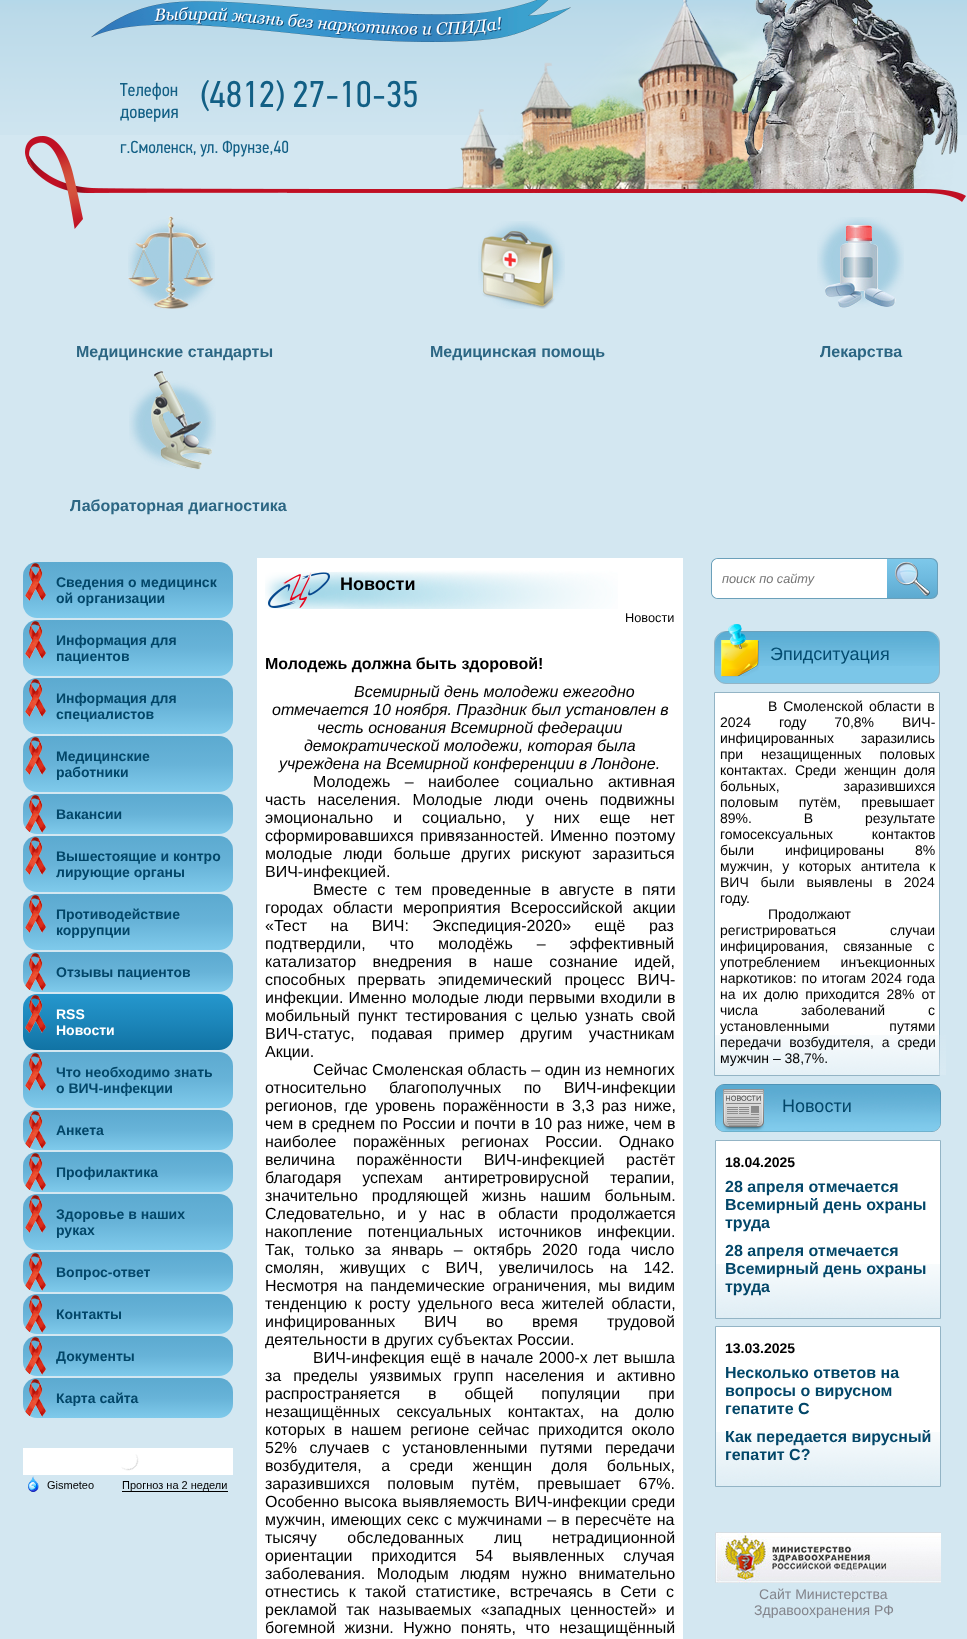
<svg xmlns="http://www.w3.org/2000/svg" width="967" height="1639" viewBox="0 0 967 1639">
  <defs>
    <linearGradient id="g1" gradientUnits="userSpaceOnUse" x1="128" y1="562" x2="128" y2="618"><stop offset="0" stop-color="#5caad0"/><stop offset="0.5" stop-color="#67b3d8"/><stop offset="1" stop-color="#7fcaeb"/></linearGradient>
    <linearGradient id="g2" gradientUnits="userSpaceOnUse" x1="128" y1="620" x2="128" y2="676"><stop offset="0" stop-color="#5caad0"/><stop offset="0.5" stop-color="#67b3d8"/><stop offset="1" stop-color="#7fcaeb"/></linearGradient>
    <linearGradient id="g3" gradientUnits="userSpaceOnUse" x1="128" y1="678" x2="128" y2="734"><stop offset="0" stop-color="#5caad0"/><stop offset="0.5" stop-color="#67b3d8"/><stop offset="1" stop-color="#7fcaeb"/></linearGradient>
    <linearGradient id="g4" gradientUnits="userSpaceOnUse" x1="128" y1="736" x2="128" y2="792"><stop offset="0" stop-color="#5caad0"/><stop offset="0.5" stop-color="#67b3d8"/><stop offset="1" stop-color="#7fcaeb"/></linearGradient>
    <linearGradient id="g5" gradientUnits="userSpaceOnUse" x1="128" y1="794" x2="128" y2="834"><stop offset="0" stop-color="#5caad0"/><stop offset="0.5" stop-color="#67b3d8"/><stop offset="1" stop-color="#7fcaeb"/></linearGradient>
    <linearGradient id="g6" gradientUnits="userSpaceOnUse" x1="128" y1="836" x2="128" y2="892"><stop offset="0" stop-color="#5caad0"/><stop offset="0.5" stop-color="#67b3d8"/><stop offset="1" stop-color="#7fcaeb"/></linearGradient>
    <linearGradient id="g7" gradientUnits="userSpaceOnUse" x1="128" y1="894" x2="128" y2="950"><stop offset="0" stop-color="#5caad0"/><stop offset="0.5" stop-color="#67b3d8"/><stop offset="1" stop-color="#7fcaeb"/></linearGradient>
    <linearGradient id="g8" gradientUnits="userSpaceOnUse" x1="128" y1="952" x2="128" y2="992"><stop offset="0" stop-color="#5caad0"/><stop offset="0.5" stop-color="#67b3d8"/><stop offset="1" stop-color="#7fcaeb"/></linearGradient>
    <linearGradient id="g9" gradientUnits="userSpaceOnUse" x1="128" y1="994" x2="128" y2="1050"><stop offset="0" stop-color="#2597cd"/><stop offset="0.5" stop-color="#1c86ba"/><stop offset="1" stop-color="#1173a4"/></linearGradient>
    <linearGradient id="g10" gradientUnits="userSpaceOnUse" x1="128" y1="1052" x2="128" y2="1108"><stop offset="0" stop-color="#5caad0"/><stop offset="0.5" stop-color="#67b3d8"/><stop offset="1" stop-color="#7fcaeb"/></linearGradient>
    <linearGradient id="g11" gradientUnits="userSpaceOnUse" x1="128" y1="1110" x2="128" y2="1150"><stop offset="0" stop-color="#5caad0"/><stop offset="0.5" stop-color="#67b3d8"/><stop offset="1" stop-color="#7fcaeb"/></linearGradient>
    <linearGradient id="g12" gradientUnits="userSpaceOnUse" x1="128" y1="1152" x2="128" y2="1192"><stop offset="0" stop-color="#5caad0"/><stop offset="0.5" stop-color="#67b3d8"/><stop offset="1" stop-color="#7fcaeb"/></linearGradient>
    <linearGradient id="g13" gradientUnits="userSpaceOnUse" x1="128" y1="1194" x2="128" y2="1250"><stop offset="0" stop-color="#5caad0"/><stop offset="0.5" stop-color="#67b3d8"/><stop offset="1" stop-color="#7fcaeb"/></linearGradient>
    <linearGradient id="g14" gradientUnits="userSpaceOnUse" x1="128" y1="1252" x2="128" y2="1292"><stop offset="0" stop-color="#5caad0"/><stop offset="0.5" stop-color="#67b3d8"/><stop offset="1" stop-color="#7fcaeb"/></linearGradient>
    <linearGradient id="g15" gradientUnits="userSpaceOnUse" x1="128" y1="1294" x2="128" y2="1334"><stop offset="0" stop-color="#5caad0"/><stop offset="0.5" stop-color="#67b3d8"/><stop offset="1" stop-color="#7fcaeb"/></linearGradient>
    <linearGradient id="g16" gradientUnits="userSpaceOnUse" x1="128" y1="1336" x2="128" y2="1376"><stop offset="0" stop-color="#5caad0"/><stop offset="0.5" stop-color="#67b3d8"/><stop offset="1" stop-color="#7fcaeb"/></linearGradient>
    <linearGradient id="g17" gradientUnits="userSpaceOnUse" x1="128" y1="1378" x2="128" y2="1418"><stop offset="0" stop-color="#5caad0"/><stop offset="0.5" stop-color="#67b3d8"/><stop offset="1" stop-color="#7fcaeb"/></linearGradient>
    <clipPath id="clip1"><rect x="711" y="558" width="227" height="41" rx="7"/></clipPath>
    <clipPath id="clip2"><path d="M887 558H931C935 558 938 561 938 565V592C938 596 935 599 931 599H887Z"/></clipPath>
    <linearGradient id="g18" gradientUnits="userSpaceOnUse" x1="912" y1="559" x2="912" y2="598"><stop offset="0" stop-color="#7dc8ea"/><stop offset="0.5" stop-color="#6ebadf"/><stop offset="1" stop-color="#5daad0"/></linearGradient>
  </defs>
  <rect width="100%" height="100%" fill="#d3e7f1"/>
  <image x="0" y="0" width="967" height="135" href="img/1.png"/>
  <image x="439" y="0" width="519" height="193" href="img/4.png"/>
  <image x="91" y="0" width="480" height="42" href="img/2.png"/>
  <image x="287" y="189" width="679" height="13" href="img/5.png"/>
  <image x="128" y="216" width="87" height="93" href="img/6.png"/>
  <image x="478" y="221" width="87" height="88" href="img/7.png"/>
  <image x="25" y="136" width="677" height="93" href="img/3.png"/>
  <image x="817" y="217" width="87" height="91" href="img/8.png"/>
  <image x="129" y="370" width="87" height="100" href="img/9.png"/>
  <rect x="23" y="562" width="210" height="56" rx="14" fill="url(#g1)"/>
  <image x="25" y="563" width="21" height="38" href="img/10.png"/>
  <rect x="23" y="620" width="210" height="56" rx="14" fill="url(#g2)"/>
  <image x="25" y="621" width="21" height="38" href="img/10.png"/>
  <rect x="23" y="678" width="210" height="56" rx="14" fill="url(#g3)"/>
  <image x="25" y="679" width="21" height="38" href="img/10.png"/>
  <rect x="23" y="736" width="210" height="56" rx="14" fill="url(#g4)"/>
  <image x="25" y="737" width="21" height="38" href="img/10.png"/>
  <rect x="23" y="794" width="210" height="40" rx="14" fill="url(#g5)"/>
  <image x="25" y="795" width="21" height="38" href="img/11.png"/>
  <rect x="23" y="836" width="210" height="56" rx="14" fill="url(#g6)"/>
  <image x="25" y="837" width="21" height="38" href="img/10.png"/>
  <rect x="23" y="894" width="210" height="56" rx="14" fill="url(#g7)"/>
  <image x="25" y="895" width="21" height="38" href="img/10.png"/>
  <rect x="23" y="952" width="210" height="40" rx="14" fill="url(#g8)"/>
  <image x="25" y="953" width="21" height="38" href="img/11.png"/>
  <rect x="23" y="994" width="210" height="56" rx="14" fill="url(#g9)"/>
  <image x="25" y="995" width="21" height="38" href="img/12.png"/>
  <rect x="23" y="1052" width="210" height="56" rx="14" fill="url(#g10)"/>
  <image x="25" y="1053" width="21" height="38" href="img/10.png"/>
  <rect x="23" y="1110" width="210" height="40" rx="14" fill="url(#g11)"/>
  <image x="25" y="1111" width="21" height="38" href="img/11.png"/>
  <rect x="23" y="1152" width="210" height="40" rx="14" fill="url(#g12)"/>
  <image x="25" y="1153" width="21" height="38" href="img/11.png"/>
  <rect x="23" y="1194" width="210" height="56" rx="14" fill="url(#g13)"/>
  <image x="25" y="1195" width="21" height="38" href="img/10.png"/>
  <rect x="23" y="1252" width="210" height="40" rx="14" fill="url(#g14)"/>
  <image x="25" y="1253" width="21" height="38" href="img/11.png"/>
  <rect x="23" y="1294" width="210" height="40" rx="14" fill="url(#g15)"/>
  <image x="25" y="1295" width="21" height="38" href="img/11.png"/>
  <rect x="23" y="1336" width="210" height="40" rx="14" fill="url(#g16)"/>
  <image x="25" y="1337" width="21" height="38" href="img/11.png"/>
  <rect x="23" y="1378" width="210" height="40" rx="14" fill="url(#g17)"/>
  <image x="25" y="1379" width="21" height="38" href="img/11.png"/>
  <path d="M23 1448h210v27H23z" fill="#fff"/>
  <image x="121" y="1454" width="18" height="17" href="img/13.png"/>
  <image x="28" y="1476" width="11" height="16" href="img/14.png"/>
  <image x="47" y="1481" width="47" height="8" href="img/15.png"/>
  <image x="122" y="1481" width="105" height="10" href="img/16.png"/>
  <path d="M122 1491h106v1H122z" fill="#000"/>
  <path d="M257 558h426v1081H257z" fill="#fff"/>
  <image x="265" y="570" width="353" height="39" href="img/17.png"/>
  <path d="M718 558C714 558 711 561 711 565V592C711 596 714 599 718 599H887V598H718C715 598 712 595 712 592V565C712 562 715 559 718 559H887V558Z" fill="#6ba0ba"/>
  <path d="M718 559H887V598H718C714.5 598 712 595.5 712 592V565C712 561.5 714.5 559 718 559Z" fill="#fff"/>
  <g clip-path="url(#clip1)">
    <g clip-path="url(#clip2)">
      <path d="M887 559h51v39H887z" fill="url(#g18)"/>
    </g>
  </g>
  <path d="M887 558V559H931C934 559 937 562 937 565V592C937 595 934 598 931 598H887V599H931C935 599 938 596 938 592V565C938 561 935 558 931 558Z" fill="#6ba0ba"/>
  <image x="895" y="562" width="35" height="34" href="img/18.png"/>
  <rect x="714.5" y="631.5" width="225" height="52" rx="11.5" fill="#7bc6e8" stroke="#93b4c5"/>
  <path d="M714.5 692.5h225v383H714.5z" fill="#fff" stroke="#93b4c5"/>
  <image x="715" y="1035" width="231" height="40" href="img/21.png"/>
  <image x="715" y="1084" width="226" height="48" href="img/22.png"/>
  <path d="M715.5 1140.5h225v178H715.5z" fill="#fff" stroke="#93b4c5"/>
  <image x="716" y="1264" width="224" height="54" href="img/23.png"/>
  <path d="M715.5 1326.5h225v160H715.5z" fill="#fff" stroke="#93b4c5"/>
  <image x="716" y="1432" width="224" height="54" href="img/23.png"/>
  <image x="715" y="1532" width="226" height="51" href="img/24.png"/>
  <g font-family="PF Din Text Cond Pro" font-size="17" fill="#125f85">
    <text x="120" y="96">Телефон</text>
    <text x="120" y="118">доверия</text>
  </g>
  <text x="200" y="107" font-family="PF Din Text Cond Pro" font-size="34" fill="#125f85">(4812) 27-10-35</text>
  <text x="120" y="153" font-family="PF Din Text Cond Pro" font-size="16" fill="#125f85">г.Смоленск, ул. Фрунзе,40</text>
  <g font-family="Liberation Sans" font-size="16" font-weight="bold" fill="#2c6683">
    <text x="76" y="357">Медицинские стандарты</text>
    <text x="430" y="357">Медицинская помощь</text>
    <text x="820" y="357">Лекарства</text>
    <text x="70" y="511">Лабораторная диагностика</text>
  </g>
  <g font-family="Liberation Sans" font-size="14" font-weight="bold" fill="#024668">
    <text x="56" y="587">Сведения о медицинск</text>
    <text x="56" y="603">ой организации</text>
    <text x="56" y="645">Информация для</text>
    <text x="56" y="661">пациентов</text>
    <text x="56" y="703">Информация для</text>
    <text x="56" y="719">специалистов</text>
    <text x="56" y="761">Медицинские</text>
    <text x="56" y="777">работники</text>
    <text x="56" y="819">Вакансии</text>
    <text x="56" y="861">Вышестоящие и контро</text>
    <text x="56" y="877">лирующие органы</text>
    <text x="56" y="919">Противодействие</text>
    <text x="56" y="935">коррупции</text>
    <text x="56" y="977">Отзывы пациентов</text>
  </g>
  <g font-family="Liberation Sans" font-size="14" font-weight="bold" fill="#fff">
    <text x="56" y="1019">RSS</text>
    <text x="56" y="1035">Новости</text>
  </g>
  <g font-family="Liberation Sans" font-size="14" font-weight="bold" fill="#024668">
    <text x="56" y="1077">Что необходимо знать</text>
    <text x="56" y="1093">о ВИЧ-инфекции</text>
    <text x="56" y="1135">Анкета</text>
    <text x="56" y="1177">Профилактика</text>
    <text x="56" y="1219">Здоровье в наших</text>
    <text x="56" y="1235">руках</text>
    <text x="56" y="1277">Вопрос-ответ</text>
    <text x="56" y="1319">Контакты</text>
    <text x="56" y="1361">Документы</text>
    <text x="56" y="1403">Карта сайта</text>
  </g>
  <text x="340" y="590" font-family="Liberation Sans" font-size="18" font-weight="bold" fill="#000">Новости</text>
  <text x="625" y="622" font-family="Liberation Sans" font-size="12.75" fill="#000">Новости</text>
  <text x="265" y="669" font-family="Liberation Sans" font-size="16" font-weight="bold" fill="#000">Молодежь должна быть здоровой!</text>
  <g font-family="Liberation Sans" font-size="16" font-style="italic" fill="#000">
    <text x="354" y="697">Всемирный день молодежи ежегодно</text>
    <text x="272" y="715">отмечается 10 ноября. Праздник был установлен в</text>
    <text x="317" y="733">честь основания Всемирной федерации</text>
    <text x="304" y="751">демократической молодежи, которая была</text>
    <text x="279" y="769">учреждена на Всемирной конференции в Лондоне.</text>
  </g>
  <g font-family="Liberation Sans" font-size="16" fill="#000">
    <text x="313" y="787" word-spacing="10">Молодежь – наиболее социально активная</text>
    <text x="265" y="805" word-spacing="7.25">часть населения. Молодые люди очень подвижны</text>
    <text x="265" y="823" word-spacing="15.5">эмоционально и социально, у них еще нет</text>
    <text x="265" y="841" word-spacing="2">сформировавшихся привязанностей. Именно поэтому</text>
    <text x="265" y="859" word-spacing="6.5">молодые люди больше других рискуют заразиться</text>
    <text x="265" y="877">ВИЧ-инфекцией.</text>
    <text x="313" y="895" word-spacing="5.25">Вместе с тем проведенные в августе в пяти</text>
    <text x="265" y="913" word-spacing="5.5">городах области мероприятия Всероссийской акции</text>
    <text x="265" y="931" word-spacing="19">«Тест на ВИЧ: Экспедиция-2020» ещё раз</text>
    <text x="265" y="949" word-spacing="19.5">подтвердили, что молодёжь – эффективный</text>
    <text x="265" y="967" word-spacing="12">катализатор внедрения в наше сознание идей,</text>
    <text x="265" y="985" word-spacing="8">способных прервать эпидемический процесс ВИЧ-</text>
    <text x="265" y="1003" word-spacing="0.75">инфекции. Именно молодые люди первыми входили в</text>
    <text x="265" y="1021" word-spacing="3.25">мобильный пункт тестирования с целью узнать свой</text>
    <text x="265" y="1039" word-spacing="12">ВИЧ-статус, подавая пример другим участникам</text>
    <text x="265" y="1057">Акции.</text>
    <text x="313" y="1075">Сейчас Смоленская область – один из немногих</text>
    <text x="265" y="1093" word-spacing="18">относительно благополучных по ВИЧ-инфекции</text>
    <text x="265" y="1111" word-spacing="3">регионов, где уровень поражённости в 3,3 раз ниже,</text>
    <text x="265" y="1129" word-spacing="0.5">чем в среднем по России и почти в 10 раз ниже, чем в</text>
    <text x="265" y="1147" word-spacing="12">наиболее поражённых регионах России. Однако</text>
    <text x="265" y="1165" word-spacing="17">величина поражённости ВИЧ-инфекцией растёт</text>
    <text x="265" y="1183" word-spacing="16.5">благодаря успехам антиретровирусной терапии,</text>
    <text x="265" y="1201" word-spacing="9.5">значительно продляющей жизнь нашим больным.</text>
    <text x="265" y="1219" word-spacing="8">Следовательно, и у нас в области продолжается</text>
    <text x="265" y="1237" word-spacing="11">накопление потенциальных источников инфекции.</text>
    <text x="265" y="1255" word-spacing="6">Так, только за январь – октябрь 2020 года число</text>
    <text x="265" y="1273" word-spacing="11.5">смолян, живущих с ВИЧ, увеличилось на 142.</text>
    <text x="265" y="1291" word-spacing="3">Несмотря на пандемические ограничения, мы видим</text>
    <text x="265" y="1309" word-spacing="3">тенденцию к росту удельного веса жителей области,</text>
    <text x="265" y="1327" word-spacing="24.5">инфицированных ВИЧ во время трудовой</text>
    <text x="265" y="1345">деятельности в других субъектах России.</text>
    <text x="313" y="1363" word-spacing="1">ВИЧ-инфекция ещё в начале 2000-х лет вышла</text>
    <text x="265" y="1381" word-spacing="7.5">за пределы уязвимых групп населения и активно</text>
    <text x="265" y="1399" word-spacing="23.5">распространяется в общей популяции при</text>
    <text x="265" y="1417" word-spacing="12">незащищённых сексуальных контактах, на долю</text>
    <text x="265" y="1435" word-spacing="4.25">которых в нашем регионе сейчас приходится около</text>
    <text x="265" y="1453" word-spacing="8">52% случаев с установленными путями передачи</text>
    <text x="265" y="1471" word-spacing="15">возбудителя, а среди женщин доля больных,</text>
    <text x="265" y="1489" word-spacing="13">заразившихся половым путём, превышает 67%.</text>
    <text x="265" y="1507" word-spacing="0.5">Особенно высока выявляемость ВИЧ-инфекции среди</text>
    <text x="265" y="1525" word-spacing="0.75">мужчин, имеющих секс с мужчинами – в пересчёте на</text>
    <text x="265" y="1543" word-spacing="26">тысячу обследованных лиц нетрадиционной</text>
    <text x="265" y="1561" word-spacing="14.5">ориентации приходится 54 выявленных случая</text>
    <text x="265" y="1579" word-spacing="7">заболевания. Молодым людям нужно внимательно</text>
    <text x="265" y="1597" word-spacing="5">отнестись к такой статистике, встречаясь в Сети с</text>
    <text x="265" y="1615" word-spacing="4.75">рекламой так называемых «западных ценностей» и</text>
    <text x="265" y="1633" word-spacing="5">богемной жизни. Нужно понять, что незащищённый</text>
  </g>
  <text x="722" y="583" font-family="Liberation Sans" font-size="12.75" font-style="italic" fill="#757575">поиск по сайту</text>
  <text x="770" y="660" font-family="Liberation Sans" font-size="18" fill="#024668">Эпидситуация</text>
  <image x="715" y="631" width="224" height="35" href="img/19.png"/>
  <image x="721" y="624" width="38" height="53" href="img/20.png"/>
  <g font-family="Liberation Sans" font-size="14" fill="#000">
    <text x="768" y="711" word-spacing="2">В Смоленской области в</text>
    <text x="720" y="727" word-spacing="24">2024 году 70,8% ВИЧ-</text>
    <text x="720" y="743" word-spacing="23">инфицированных заразились</text>
    <text x="720" y="759" word-spacing="14">при незащищенных половых</text>
    <text x="720" y="775" word-spacing="4">контактах. Среди женщин доля</text>
    <text x="720" y="791" word-spacing="60">больных, заразившихся</text>
    <text x="720" y="807" word-spacing="16.5">половым путём, превышает</text>
    <text x="720" y="823" word-spacing="48">89%. В результате</text>
    <text x="720" y="839" word-spacing="35">гомосексуальных контактов</text>
    <text x="720" y="855" word-spacing="27">были инфицированы 8%</text>
    <text x="720" y="871" word-spacing="5.5">мужчин, у которых антитела к</text>
    <text x="720" y="887" word-spacing="8">ВИЧ были выявлены в 2024</text>
    <text x="720" y="903">году.</text>
    <text x="768" y="919">Продолжают</text>
    <text x="720" y="935" word-spacing="50">регистрироваться случаи</text>
    <text x="720" y="951" word-spacing="11">инфицирования, связанные с</text>
    <text x="720" y="967" word-spacing="16.5">употреблением инъекционных</text>
    <text x="720" y="983" word-spacing="1">наркотиков: по итогам 2024 года</text>
    <text x="720" y="999" word-spacing="3">на их долю приходится 28% от</text>
    <text x="720" y="1015" word-spacing="39">числа заболеваний с</text>
    <text x="720" y="1031" word-spacing="56">установленными путями</text>
    <text x="720" y="1047" word-spacing="4">передачи возбудителя, а среди</text>
    <text x="720" y="1063">мужчин – 38,7%.</text>
  </g>
  <text x="782" y="1112" font-family="Liberation Sans" font-size="18" fill="#024668">Новости</text>
  <text x="725" y="1167" font-family="Liberation Sans" font-size="14" font-weight="bold" fill="#000">18.04.2025</text>
  <g font-family="Liberation Sans" font-size="16" font-weight="bold" fill="#024668">
    <text x="725" y="1192">28 апреля отмечается</text>
    <text x="725" y="1210">Всемирный день охраны</text>
    <text x="725" y="1228">труда</text>
    <text x="725" y="1256">28 апреля отмечается</text>
    <text x="725" y="1274">Всемирный день охраны</text>
    <text x="725" y="1292">труда</text>
  </g>
  <text x="725" y="1353" font-family="Liberation Sans" font-size="14" font-weight="bold" fill="#000">13.03.2025</text>
  <g font-family="Liberation Sans" font-size="16" font-weight="bold" fill="#024668">
    <text x="725" y="1378">Несколько ответов на</text>
    <text x="725" y="1396">вопросы о вирусном</text>
    <text x="725" y="1414">гепатите С</text>
    <text x="725" y="1442">Как передается вирусный</text>
    <text x="725" y="1460">гепатит С?</text>
  </g>
  <g font-family="Liberation Sans" font-size="14" fill="#83848b">
    <text x="759" y="1599">Сайт Министерства</text>
    <text x="754" y="1615">Здравоохранения РФ</text>
  </g>
</svg>
